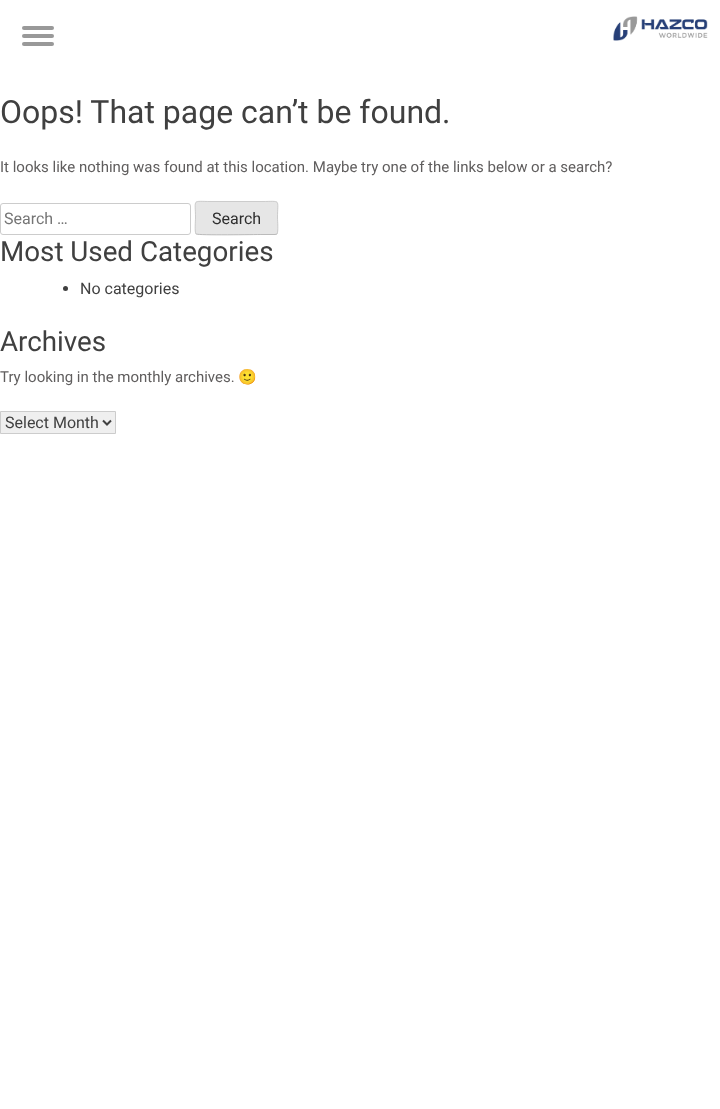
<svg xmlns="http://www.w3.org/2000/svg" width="720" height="1109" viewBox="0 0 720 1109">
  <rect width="100%" height="100%" fill="#fff"/>
  <rect x="22" y="26" width="32" height="4" rx="2" fill="#999"/>
  <rect x="22" y="34" width="32" height="4" rx="2" fill="#999"/>
  <rect x="22" y="42" width="32" height="4" rx="2" fill="#999"/>
  <image x="613" y="16" width="95" height="25" href="img/1.png"/>
  <rect x="0.5" y="203.5" width="190" height="31" rx="2.5" fill="none" stroke="#ccc"/>
  <rect x="195" y="201" width="83" height="34" rx="3" fill="#e6e6e6"/>
  <path d="M277 234L275 234.5H262C255 234.5 198.5 235.5 196.5 234H196" fill="none" stroke="#bbb"/>
  <path d="M196 234C194.5 232 195.5 220.5 195.5 218C195.5 198.5 191.5 201.5 211 201.5H262C281.5 201.5 277.5 198.5 277.5 218C277.5 220.5 278.5 232 277 234" fill="none" stroke="#ccc"/>
  <circle cx="65.5" cy="288.5" r="2.5" fill="#404040"/>
  <path d="M0.5 411.5h115v22H0.5z" fill="#efefef" stroke="#ccc"/>
  <path d="M103 420.5L107 424.5L111 420.5" fill="none" stroke="#404040" stroke-width="2"/>
  <text x="0" y="123" font-family="Roboto" font-size="32" fill="#404040">Oops! That page can’t be found.</text>
  <text x="0" y="172" font-family="Roboto" font-size="15" fill="#605e5e">It looks like nothing was found at this location. Maybe try one of the links below or a search?</text>
  <text x="4" y="224" font-family="Roboto" font-size="16" fill="#757575">Search …</text>
  <text x="212" y="224" font-family="Roboto" font-size="16" fill="#2e2e2e">Search</text>
  <text x="0" y="261" font-family="Roboto" font-size="27.75" fill="#404040">Most Used Categories</text>
  <text x="80" y="294" font-family="Roboto" font-size="16" fill="#404040">No categories</text>
  <text x="0" y="351" font-family="Roboto" font-size="27.75" fill="#404040">Archives</text>
  <text x="0" y="382" font-family="Roboto" font-size="15" fill="#605e5e">Try looking in the monthly archives.</text>
  <text x="238" y="382" font-family="Noto Color Emoji" font-size="15" fill="#605e5e">🙂</text>
  <text x="5" y="428" font-family="Roboto" font-size="16" fill="#404040">Select Month</text>
</svg>
